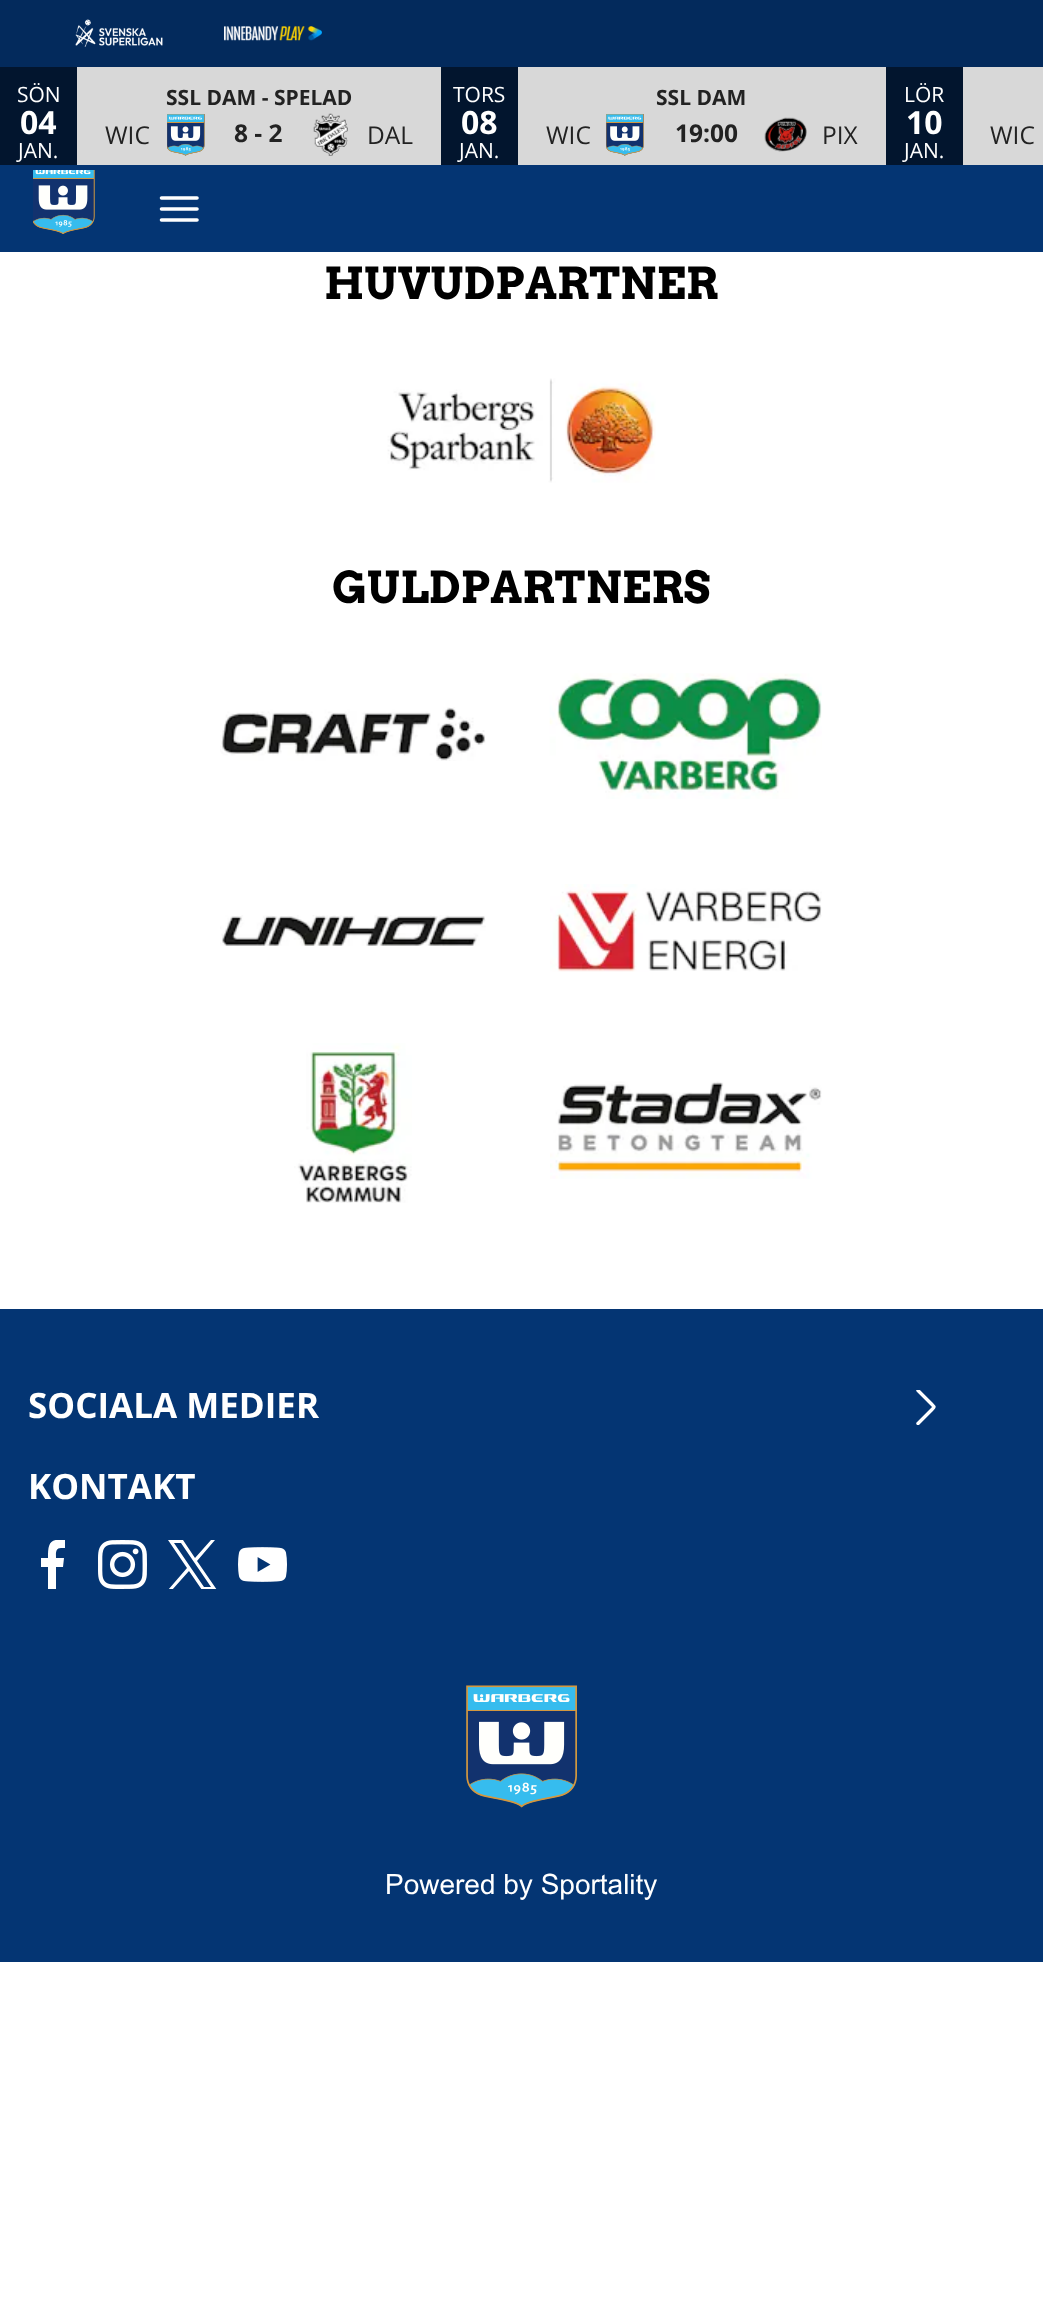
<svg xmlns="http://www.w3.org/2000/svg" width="1043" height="2319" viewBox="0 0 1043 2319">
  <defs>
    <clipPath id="clip1"><path d="M910 1390h35v35H910z"/></clipPath>
    <clipPath id="clip2"><path d="M28 1540h49v49H28z"/></clipPath>
    <clipPath id="clip3"><path d="M168 1540h49v49H168z"/></clipPath>
  </defs>
  <rect width="100%" height="100%" fill="#fff"/>
  <path d="M0 0h1043v67H0z" fill="#032a5c"/>
  <image x="75" y="19" width="88" height="28" href="img/1.png"/>
  <image x="224" y="26" width="98" height="15" href="img/2.png"/>
  <path d="M77 67h966v98H77z" fill="#d8d8d8"/>
  <path d="M0 67h77v98H0z" fill="#02152e"/>
  <image x="167" y="114" width="38" height="42" href="img/3.png"/>
  <image x="313" y="113" width="35" height="43" href="img/4.png"/>
  <path d="M441 67h77v98H441z" fill="#02152e"/>
  <image x="606" y="114" width="38" height="42" href="img/5.png"/>
  <image x="764" y="117" width="43" height="35" href="img/6.png"/>
  <path d="M886 67h77v98H886z" fill="#02152e"/>
  <path d="M0 165h1043v87H0z" fill="#043573"/>
  <image x="33" y="170" width="62" height="64" href="img/7.png"/>
  <path d="M161.5 220H197M161.5 209H197M161.5 198H197" fill="none" stroke="#fff" stroke-width="3.6" stroke-linecap="round" stroke-linejoin="round"/>
  <image x="387" y="378" width="269" height="105" href="img/8.png"/>
  <image x="220" y="707" width="266" height="54" href="img/9.png"/>
  <image x="549" y="673" width="273" height="126" href="img/10.png"/>
  <image x="220" y="915" width="266" height="31" href="img/11.png"/>
  <image x="550" y="884" width="272" height="88" href="img/12.png"/>
  <image x="294" y="1043" width="118" height="160" href="img/13.png"/>
  <image x="550" y="1081" width="272" height="98" href="img/14.png"/>
  <path d="M0 1309h1043v653H0z" fill="#043573"/>
  <g clip-path="url(#clip1)">
    <path d="M918 1390.5L931 1403.5C935 1407.5 935 1406.5 931 1410.5L918 1423.5" fill="none" stroke="#fff" stroke-width="3.4" stroke-linecap="round" stroke-linejoin="round"/>
  </g>
  <g clip-path="url(#clip2)">
    <path d="M61 1548H65V1540C49 1538 48 1544 48 1558H41V1567H48V1589H56V1567H63L64 1558H56C56 1554 55 1548 61 1548Z" fill="#fff"/>
  </g>
  <image x="98" y="1540" width="49" height="49" href="img/15.png"/>
  <g clip-path="url(#clip3)">
    <path d="M197 1561L215 1540H211L195 1558L183 1540H168L187 1568L168 1590H172L189 1571L202 1590H217ZM191 1568L174 1543H181L211 1587H204Z" fill="#fff"/>
  </g>
  <image x="238" y="1547" width="49" height="35" href="img/16.png"/>
  <image x="466" y="1685" width="111" height="123" href="img/17.png"/>
  <text x="17" y="102" font-family="Open Sans" font-size="21" fill="#fff">SÖN</text>
  <text x="20" y="134" font-family="Open Sans" font-size="32" font-weight="bold" fill="#fff">04</text>
  <text x="18" y="158" font-family="Open Sans" font-size="21" fill="#fff">JAN.</text>
  <text x="166" y="105" font-family="Open Sans" font-size="21" font-weight="bold" fill="#222">SSL DAM - SPELAD</text>
  <text x="105" y="144" font-family="Open Sans" font-size="24.5" fill="#222">WIC</text>
  <text x="234" y="142" font-family="Open Sans" font-size="24.5" font-weight="bold" fill="#222">8 - 2</text>
  <text x="367" y="144" font-family="Open Sans" font-size="24.5" fill="#222">DAL</text>
  <text x="453" y="102" font-family="Open Sans" font-size="21" fill="#fff">TORS</text>
  <text x="461" y="134" font-family="Open Sans" font-size="32" font-weight="bold" fill="#fff">08</text>
  <text x="459" y="158" font-family="Open Sans" font-size="21" fill="#fff">JAN.</text>
  <text x="656" y="105" font-family="Open Sans" font-size="21" font-weight="bold" fill="#222">SSL DAM</text>
  <text x="546" y="144" font-family="Open Sans" font-size="24.5" fill="#222">WIC</text>
  <text x="675" y="142" font-family="Open Sans" font-size="24.5" font-weight="bold" fill="#222">19:00</text>
  <text x="822" y="144" font-family="Open Sans" font-size="24.5" fill="#222">PIX</text>
  <text x="904" y="102" font-family="Open Sans" font-size="21" fill="#fff">LÖR</text>
  <text x="906" y="134" font-family="Open Sans" font-size="32" font-weight="bold" fill="#fff">10</text>
  <text x="904" y="158" font-family="Open Sans" font-size="21" fill="#fff">JAN.</text>
  <text x="990" y="144" font-family="Open Sans" font-size="24.5" fill="#222">WIC</text>
  <g font-family="Arvo" font-size="43.75" font-weight="bold" fill="#000">
    <text x="324" y="299">HUVUDPARTNER</text>
    <text x="332" y="603">GULDPARTNERS</text>
  </g>
  <g font-family="Open Sans" font-size="35" font-weight="bold" fill="#fff">
    <text x="28" y="1418">SOCIALA MEDIER</text>
    <text x="28" y="1499">KONTAKT</text>
  </g>
  <text x="385" y="1894" font-family="Arial" font-size="28" fill="#fff">Powered by Sportality</text>
</svg>
